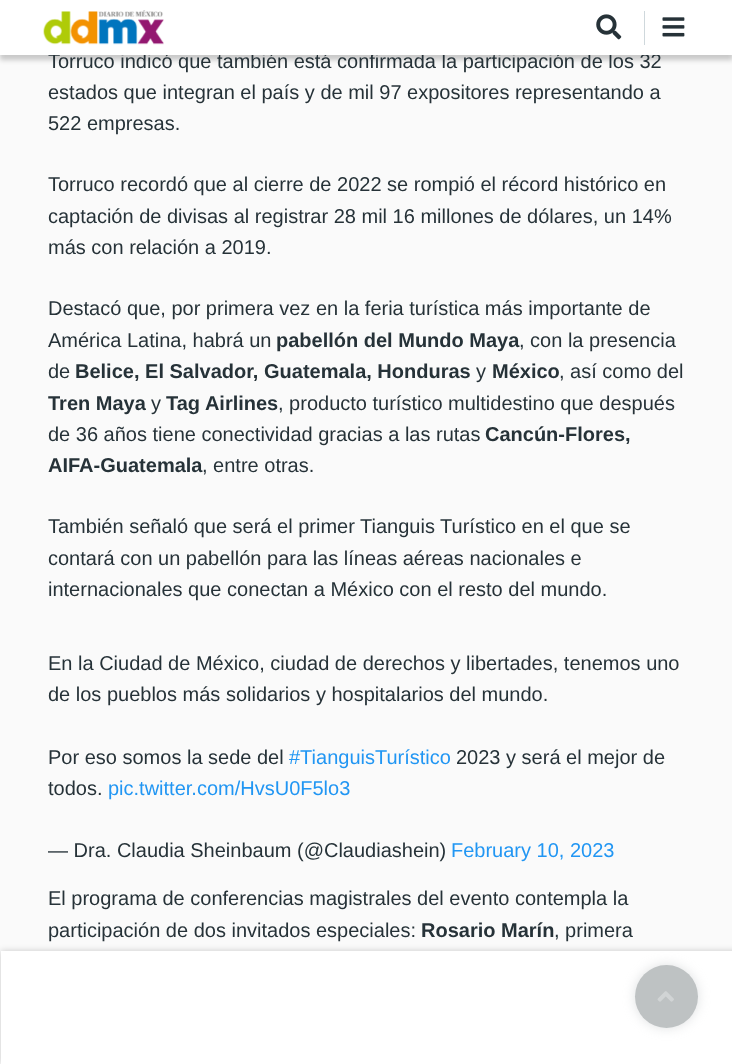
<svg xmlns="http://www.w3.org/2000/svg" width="732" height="1064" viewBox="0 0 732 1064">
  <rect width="100%" height="100%" fill="#fafafa"/>
  <path d="M0 5h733v55H0z" fill="#00000033" filter="blur(2.5px)"/>
  <path d="M1 951h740v113H1z" fill="#00000033" filter="blur(3px)"/>
  <path d="M1 951h731v113H1z" fill="#fff"/>
  <rect x="635" y="965" width="63" height="63" rx="31.5" fill="#bec2c380" filter="blur(6px)"/>
  <circle cx="666.5" cy="996.5" r="31.5" fill="#bec2c3"/>
  <image x="657" y="991" width="17" height="11" href="img/4.png"/>
  <text x="48" y="68" font-family="Liberation Sans" font-size="20" fill="#263238">Torruco indicó que también está confirmada la participación de los 32</text>
  <path d="M0 0h732v55H0z" fill="#fff"/>
  <image x="662" y="17" width="23" height="20" href="img/3.png"/>
  <path d="M644 11h1v34H644z" fill="#cfd8dc"/>
  <image x="596" y="14" width="26" height="26" href="img/2.png"/>
  <image x="43" y="10" width="121" height="35" href="img/1.png"/>
  <g font-family="Liberation Sans" font-size="20" fill="#263238">
    <text x="48" y="99">estados que integran el país y de mil 97 expositores representando a</text>
    <text x="48" y="130">522 empresas.</text>
    <text x="48" y="191">Torruco recordó que al cierre de 2022 se rompió el récord histórico en</text>
    <text x="48" y="223">captación de divisas al registrar 28 mil 16 millones de dólares, un 14%</text>
    <text x="48" y="254">más con relación a 2019.</text>
    <text x="48" y="315">Destacó que, por primera vez en la feria turística más importante de</text>
    <text x="48" y="347">América Latina, habrá un</text>
  </g>
  <text x="276" y="347" font-family="Liberation Sans" font-size="20" font-weight="bold" fill="#263238">pabellón del Mundo Maya</text>
  <g font-family="Liberation Sans" font-size="20" fill="#263238">
    <text x="519" y="347">, con la presencia</text>
    <text x="48" y="378">de</text>
  </g>
  <text x="75" y="378" font-family="Liberation Sans" font-size="20" font-weight="bold" fill="#263238">Belice, El Salvador, Guatemala, Honduras</text>
  <text x="476" y="378" font-family="Liberation Sans" font-size="20" fill="#263238">y</text>
  <text x="492" y="378" font-family="Liberation Sans" font-size="20" font-weight="bold" fill="#263238">México</text>
  <text x="559" y="378" font-family="Liberation Sans" font-size="20" fill="#263238">, así como del</text>
  <text x="48" y="410" font-family="Liberation Sans" font-size="20" font-weight="bold" fill="#263238">Tren Maya</text>
  <text x="151" y="410" font-family="Liberation Sans" font-size="20" fill="#263238">y</text>
  <text x="166" y="410" font-family="Liberation Sans" font-size="20" font-weight="bold" fill="#263238">Tag Airlines</text>
  <g font-family="Liberation Sans" font-size="20" fill="#263238">
    <text x="278" y="410">, producto turístico multidestino que después</text>
    <text x="48" y="441">de 36 años tiene conectividad gracias a las rutas</text>
  </g>
  <g font-family="Liberation Sans" font-size="20" font-weight="bold" fill="#263238">
    <text x="485" y="441">Cancún-Flores,</text>
    <text x="48" y="472">AIFA-Guatemala</text>
  </g>
  <g font-family="Liberation Sans" font-size="20" fill="#263238">
    <text x="202" y="472">, entre otras.</text>
    <text x="48" y="533">También señaló que será el primer Tianguis Turístico en el que se</text>
    <text x="48" y="565">contará con un pabellón para las líneas aéreas nacionales e</text>
    <text x="48" y="596">internacionales que conectan a México con el resto del mundo.</text>
    <text x="48" y="670">En la Ciudad de México, ciudad de derechos y libertades, tenemos uno</text>
    <text x="48" y="701">de los pueblos más solidarios y hospitalarios del mundo.</text>
    <text x="48" y="764">Por eso somos la sede del</text>
  </g>
  <text x="289" y="764" font-family="Liberation Sans" font-size="20" fill="#2196f3">#TianguisTurístico</text>
  <g font-family="Liberation Sans" font-size="20" fill="#263238">
    <text x="456" y="764">2023 y será el mejor de</text>
    <text x="48" y="795">todos.</text>
  </g>
  <text x="108" y="795" font-family="Liberation Sans" font-size="20" fill="#2196f3">pic.twitter.com/HvsU0F5lo3</text>
  <text x="48" y="857" font-family="Liberation Sans" font-size="20" fill="#263238">— Dra. Claudia Sheinbaum (@Claudiashein)</text>
  <text x="451" y="857" font-family="Liberation Sans" font-size="20" fill="#2196f3">February 10, 2023</text>
  <g font-family="Liberation Sans" font-size="20" fill="#263238">
    <text x="48" y="905">El programa de conferencias magistrales del evento contempla la</text>
    <text x="48" y="937">participación de dos invitados especiales:</text>
  </g>
  <text x="421" y="937" font-family="Liberation Sans" font-size="20" font-weight="bold" fill="#263238">Rosario Marín</text>
  <text x="554" y="937" font-family="Liberation Sans" font-size="20" fill="#263238">, primera</text>
</svg>
